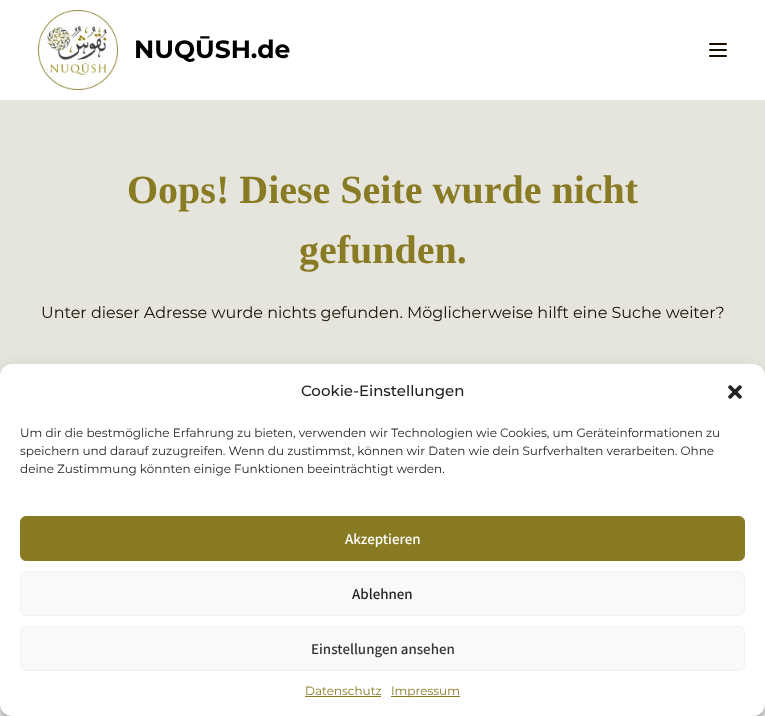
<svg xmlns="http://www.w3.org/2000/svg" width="765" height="716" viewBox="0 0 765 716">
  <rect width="100%" height="100%" fill="#e6e5dd"/>
  <path d="M0 0h765v100H0z" fill="#fff"/>
  <image x="38" y="10" width="80" height="80" href="img/1.png"/>
  <rect x="709" y="43" width="18" height="2" rx="1" fill="#1a0e00"/>
  <rect x="709" y="49" width="18" height="2" rx="1" fill="#1a0e00"/>
  <rect x="709" y="55" width="18" height="2" rx="1" fill="#1a0e00"/>
  <path d="M0 704h765v12H0z" fill="#fff"/>
  <rect y="370" width="765" height="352" rx="12" fill="#0000003b" filter="blur(3px)"/>
  <rect y="374" width="765" height="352" rx="12" fill="#00000030" filter="blur(10px)"/>
  <rect y="364" width="765" height="352" rx="12" fill="#fff"/>
  <image x="728" y="385" width="14" height="14" href="img/2.png"/>
  <rect x="20.5" y="516.5" width="724" height="44" rx="5.5" fill="#887b24" stroke="#887b24"/>
  <rect x="20.5" y="571.5" width="724" height="44" rx="5.5" fill="#f9f9f9" stroke="#f2f2f2"/>
  <rect x="20.5" y="626.5" width="724" height="44" rx="5.5" fill="#f9f9f9" stroke="#f2f2f2"/>
  <path d="M305 696h76v1H305z" fill="#887b24"/>
  <path d="M391 696h69v1H391z" fill="#887b24"/>
  <text x="134" y="58" font-family="Montserrat" font-size="25" font-weight="bold" fill="#000">NUQŪSH.de</text>
  <g font-family="Liberation Serif" font-size="40" font-weight="bold" fill="#887b24">
    <text x="127" y="203">Oops! Diese Seite wurde nicht</text>
    <text x="299" y="263">gefunden.</text>
  </g>
  <text x="41" y="318" font-family="Montserrat" font-size="16" fill="#1a0e00">Unter dieser Adresse wurde nichts gefunden. Möglicherweise hilft eine Suche weiter?</text>
  <text x="301" y="396" font-family="Montserrat" font-size="15" font-weight="500" fill="#222">Cookie-Einstellungen</text>
  <g font-family="Montserrat" font-size="12" fill="#222">
    <text x="20" y="437">Um dir die bestmögliche Erfahrung zu bieten, verwenden wir Technologien wie Cookies, um Geräteinformationen zu</text>
    <text x="20" y="455">speichern und darauf zuzugreifen. Wenn du zustimmst, können wir Daten wie dein Surfverhalten verarbeiten. Ohne</text>
    <text x="20" y="473">deine Zustimmung könnten einige Funktionen beeinträchtigt werden.</text>
  </g>
  <text x="345" y="544" font-family="Assistant" font-size="15" font-weight="600" fill="#fff">Akzeptieren</text>
  <text x="352" y="599" font-family="Assistant" font-size="15" font-weight="600" fill="#222">Ablehnen</text>
  <text x="311" y="654" font-family="Assistant" font-size="15" font-weight="600" fill="#333">Einstellungen ansehen</text>
  <g font-family="Montserrat" font-size="12" fill="#887b24">
    <text x="305" y="695">Datenschutz</text>
    <text x="391" y="695">Impressum</text>
  </g>
</svg>
